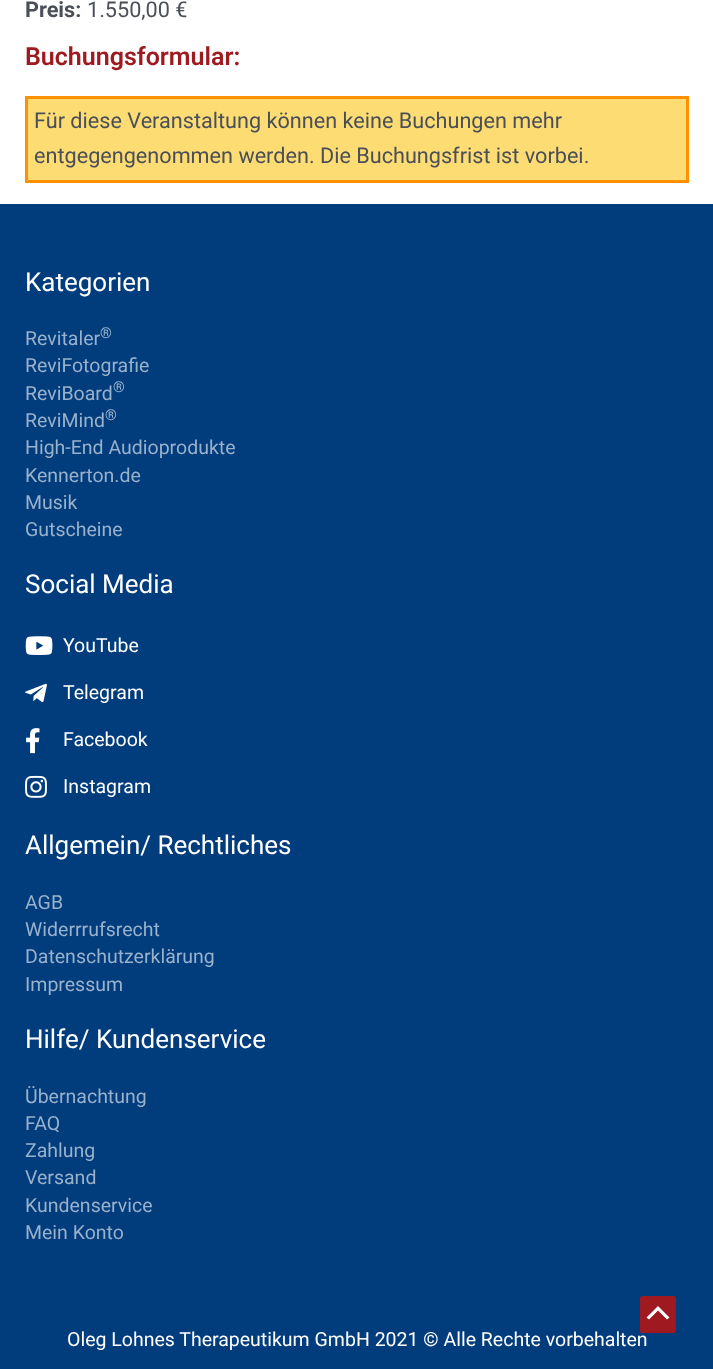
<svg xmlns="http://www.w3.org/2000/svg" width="713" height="1369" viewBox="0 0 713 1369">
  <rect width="100%" height="100%" fill="#fff"/>
  <path d="M26.5 97.5h661v84H26.5z" fill="#fddd73" stroke="#ff9100" stroke-width="3"/>
  <path d="M0 204h713v1165H0z" fill="#013c7d"/>
  <image x="25" y="636" width="28" height="19" href="img/1.png"/>
  <image x="25" y="683" width="22" height="20" href="img/2.png"/>
  <image x="26" y="728" width="14" height="26" href="img/3.png"/>
  <image x="25" y="775" width="22" height="23" href="img/4.png"/>
  <text x="25" y="17" font-family="Roboto" font-size="21.65" font-weight="bold" fill="#4b4f58">Preis:</text>
  <text x="87" y="17" font-family="Roboto" font-size="21.65" fill="#4b4f58">1.550,00 €</text>
  <text x="25" y="65" font-family="Roboto" font-size="25" font-weight="600" fill="#9e1a20">Buchungsformular:</text>
  <g font-family="Roboto" font-size="21.65" fill="#4b4f58">
    <text x="34" y="128">Für diese Veranstaltung können keine Buchungen mehr</text>
    <text x="34" y="163">entgegengenommen werden. Die Buchungsfrist ist vorbei.</text>
  </g>
  <text x="25" y="291" font-family="Roboto" font-size="26" fill="#fff">Kategorien</text>
  <text x="25" y="345" font-family="Roboto" font-size="19.5" fill="#99b1cb">Revitaler</text>
  <text x="100" y="338" font-family="Roboto" font-size="15" fill="#99b1cb">®</text>
  <g font-family="Roboto" font-size="19.5" fill="#99b1cb">
    <text x="25" y="372">ReviFotografie</text>
    <text x="25" y="400">ReviBoard</text>
  </g>
  <text x="113" y="392" font-family="Roboto" font-size="15" fill="#99b1cb">®</text>
  <text x="25" y="427" font-family="Roboto" font-size="19.5" fill="#99b1cb">ReviMind</text>
  <text x="105" y="420" font-family="Roboto" font-size="15" fill="#99b1cb">®</text>
  <g font-family="Roboto" font-size="19.5" fill="#99b1cb">
    <text x="25" y="454">High-End Audioprodukte</text>
    <text x="25" y="482">Kennerton.de</text>
    <text x="25" y="509">Musik</text>
    <text x="25" y="536">Gutscheine</text>
  </g>
  <text x="25" y="593" font-family="Roboto" font-size="26" fill="#fff">Social Media</text>
  <g font-family="Roboto" font-size="19.5" fill="#fff">
    <text x="63" y="652">YouTube</text>
    <text x="63" y="699">Telegram</text>
    <text x="63" y="746">Facebook</text>
    <text x="63" y="793">Instagram</text>
  </g>
  <text x="25" y="854" font-family="Roboto" font-size="26" fill="#fff">Allgemein/ Rechtliches</text>
  <g font-family="Roboto" font-size="19.5" fill="#99b1cb">
    <text x="25" y="909">AGB</text>
    <text x="25" y="936">Widerrrufsrecht</text>
    <text x="25" y="963">Datenschutzerklärung</text>
    <text x="25" y="991">Impressum</text>
  </g>
  <text x="25" y="1048" font-family="Roboto" font-size="26" fill="#fff">Hilfe/ Kundenservice</text>
  <g font-family="Roboto" font-size="19.5" fill="#99b1cb">
    <text x="25" y="1103">Übernachtung</text>
    <text x="25" y="1130">FAQ</text>
    <text x="25" y="1157">Zahlung</text>
    <text x="25" y="1184">Versand</text>
    <text x="25" y="1212">Kundenservice</text>
    <text x="25" y="1239">Mein Konto</text>
  </g>
  <text x="67" y="1346" font-family="Roboto" font-size="19.5" fill="#fff">Oleg Lohnes Therapeutikum GmbH 2021 © Alle Rechte vorbehalten</text>
  <rect x="640" y="1296" width="36" height="37" rx="2.5" fill="#9e1a20"/>
  <path d="M669.5 1317.5L658 1306L646.5 1317.5L649 1319.5L658 1310.5L667 1319.5Z" fill="#fff"/>
</svg>
